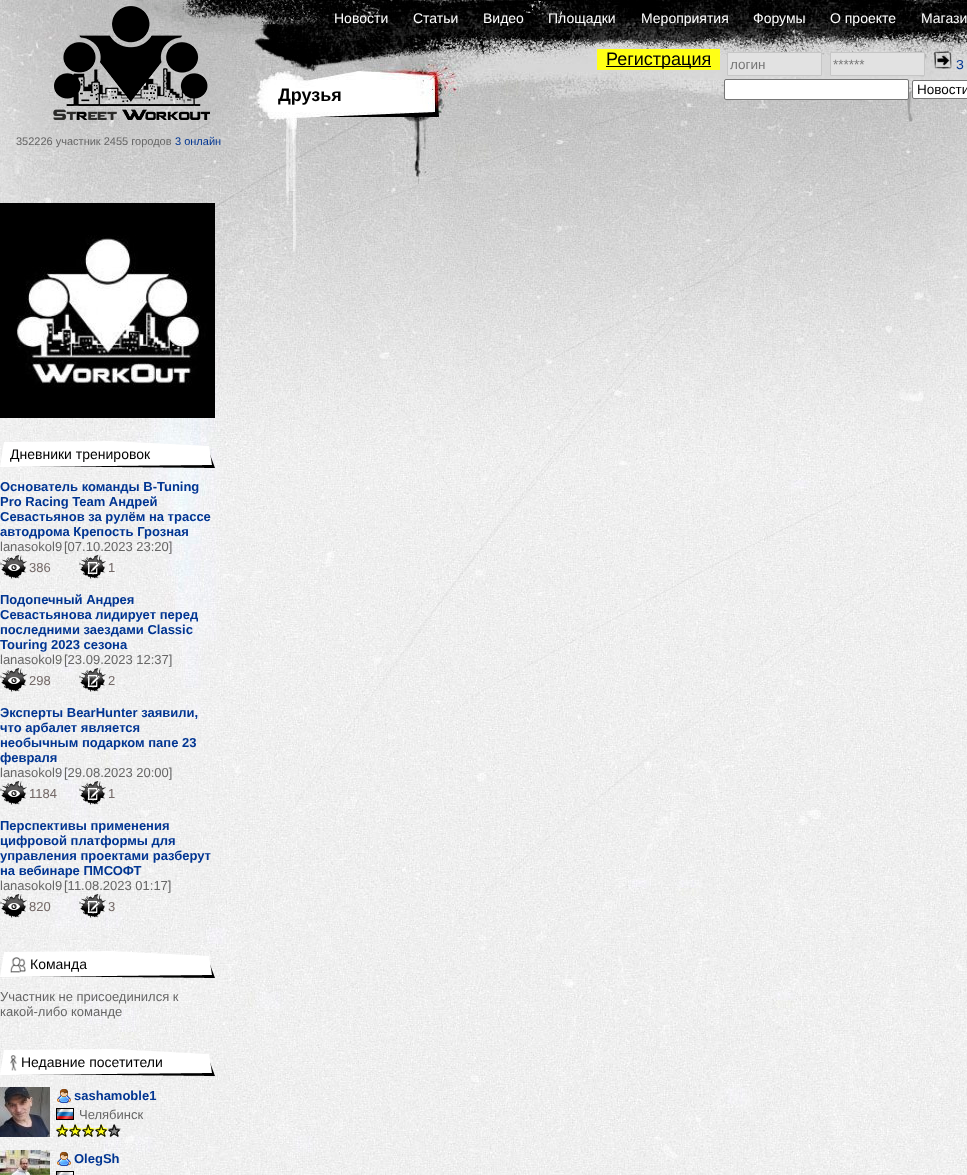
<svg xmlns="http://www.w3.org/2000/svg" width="967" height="1175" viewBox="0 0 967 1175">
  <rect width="100%" height="100%" fill="#fff"/>
  <image x="0" y="0" width="967" height="1175" href="img/1.png"/>
  <path d="M597 49h123v21H597z" fill="#ffff16"/>
  <path d="M606 66h105v1H606z" fill="#000"/>
  <path d="M727.5 52.5h94v23H727.5z" fill="#e2e2e2" stroke="#c6c6c6"/>
  <path d="M830.5 52.5h94v23H830.5z" fill="#e2e2e2" stroke="#c6c6c6"/>
  <image x="934" y="51" width="18" height="18" href="img/2.png"/>
  <rect x="724.5" y="79.5" width="184" height="20" rx="1.5" fill="#fff" stroke="#767676"/>
  <rect x="912.5" y="80.5" width="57" height="18" rx="1.5" fill="#fff" stroke="#767676"/>
  <image x="0" y="203" width="215" height="215" href="img/3.png"/>
  <image x="0" y="441" width="215" height="27" href="img/4.png"/>
  <image x="0" y="555" width="27" height="24" href="img/5.png"/>
  <image x="79" y="555" width="27" height="24" href="img/6.png"/>
  <image x="0" y="668" width="27" height="24" href="img/7.png"/>
  <image x="79" y="668" width="27" height="24" href="img/8.png"/>
  <image x="0" y="781" width="27" height="24" href="img/9.png"/>
  <image x="79" y="781" width="27" height="24" href="img/10.png"/>
  <image x="0" y="894" width="27" height="24" href="img/11.png"/>
  <image x="79" y="894" width="27" height="24" href="img/12.png"/>
  <image x="0" y="951" width="215" height="27" href="img/13.png"/>
  <image x="10" y="957" width="16" height="16" href="img/14.png"/>
  <image x="0" y="1049" width="215" height="27" href="img/15.png"/>
  <image x="10" y="1055" width="7" height="16" href="img/16.png"/>
  <image x="0" y="1087" width="50" height="50" href="img/17.png"/>
  <image x="57" y="1089" width="14" height="14" href="img/18.png"/>
  <image x="56" y="1108" width="18" height="12" href="img/19.png"/>
  <image x="56" y="1124" width="13" height="13" href="img/20.png"/>
  <image x="69" y="1124" width="13" height="13" href="img/21.png"/>
  <image x="82" y="1124" width="13" height="13" href="img/22.png"/>
  <image x="95" y="1124" width="13" height="13" href="img/23.png"/>
  <image x="108" y="1124" width="13" height="13" href="img/24.png"/>
  <image x="0" y="1150" width="50" height="25" href="img/25.png"/>
  <image x="57" y="1152" width="14" height="14" href="img/26.png"/>
  <image x="56" y="1171" width="18" height="4" href="img/27.png"/>
  <g font-family="Liberation Sans" font-size="14" fill="#fff">
    <text x="334" y="23">Новости</text>
    <text x="413" y="23">Статьи</text>
    <text x="483" y="23">Видео</text>
    <text x="548" y="23">Площадки</text>
    <text x="641" y="23">Мероприятия</text>
    <text x="753" y="23">Форумы</text>
    <text x="830" y="23">О проекте</text>
    <text x="921" y="23">Магази</text>
  </g>
  <text x="606" y="65" font-family="Liberation Sans" font-size="18" fill="#000">Регистрация</text>
  <g font-family="Liberation Sans" font-size="13.5" fill="#757575">
    <text x="730" y="69">логин</text>
    <text x="833" y="69">******</text>
  </g>
  <text x="956" y="69" font-family="Liberation Sans" font-size="13" fill="#003592">З</text>
  <text x="278" y="101" font-family="Liberation Sans" font-size="18" font-weight="bold" fill="#000">Друзья</text>
  <text x="917" y="94" font-family="Liberation Sans" font-size="13.5" fill="#000">Новости</text>
  <text x="16" y="145" font-family="Liberation Sans" font-size="11" fill="#666">352226 участник 2455 городов</text>
  <text x="175" y="145" font-family="Liberation Sans" font-size="11" fill="#003592">3 онлайн</text>
  <text x="10" y="459" font-family="Liberation Sans" font-size="14" fill="#000">Дневники тренировок</text>
  <g font-family="Liberation Sans" font-size="13" font-weight="bold" fill="#003592">
    <text x="0" y="491">Основатель команды B-Tuning</text>
    <text x="0" y="506">Pro Racing Team Андрей</text>
    <text x="0" y="521">Севастьянов за рулём на трассе</text>
    <text x="0" y="536">автодрома Крепость Грозная</text>
  </g>
  <g font-family="Liberation Sans" font-size="13" fill="#666">
    <text x="0" y="551">lanasokol9</text>
    <text x="64" y="551">[07.10.2023 23:20]</text>
  </g>
  <g font-family="Liberation Sans" font-size="13" fill="#736866">
    <text x="29" y="572">386</text>
    <text x="108" y="572">1</text>
  </g>
  <g font-family="Liberation Sans" font-size="13" font-weight="bold" fill="#003592">
    <text x="0" y="604">Подопечный Андрея</text>
    <text x="0" y="619">Севастьянова лидирует перед</text>
    <text x="0" y="634">последними заездами Classic</text>
    <text x="0" y="649">Touring 2023 сезона</text>
  </g>
  <g font-family="Liberation Sans" font-size="13" fill="#666">
    <text x="0" y="664">lanasokol9</text>
    <text x="64" y="664">[23.09.2023 12:37]</text>
  </g>
  <g font-family="Liberation Sans" font-size="13" fill="#736866">
    <text x="29" y="685">298</text>
    <text x="108" y="685">2</text>
  </g>
  <g font-family="Liberation Sans" font-size="13" font-weight="bold" fill="#003592">
    <text x="0" y="717">Эксперты BearHunter заявили,</text>
    <text x="0" y="732">что арбалет является</text>
    <text x="0" y="747">необычным подарком папе 23</text>
    <text x="0" y="762">февраля</text>
  </g>
  <g font-family="Liberation Sans" font-size="13" fill="#666">
    <text x="0" y="777">lanasokol9</text>
    <text x="64" y="777">[29.08.2023 20:00]</text>
  </g>
  <g font-family="Liberation Sans" font-size="13" fill="#736866">
    <text x="29" y="798">1184</text>
    <text x="108" y="798">1</text>
  </g>
  <g font-family="Liberation Sans" font-size="13" font-weight="bold" fill="#003592">
    <text x="0" y="830">Перспективы применения</text>
    <text x="0" y="845">цифровой платформы для</text>
    <text x="0" y="860">управления проектами разберут</text>
    <text x="0" y="875">на вебинаре ПМСОФТ</text>
  </g>
  <g font-family="Liberation Sans" font-size="13" fill="#666">
    <text x="0" y="890">lanasokol9</text>
    <text x="64" y="890">[11.08.2023 01:17]</text>
  </g>
  <g font-family="Liberation Sans" font-size="13" fill="#736866">
    <text x="29" y="911">820</text>
    <text x="108" y="911">3</text>
  </g>
  <text x="30" y="969" font-family="Liberation Sans" font-size="14" fill="#000">Команда</text>
  <g font-family="Liberation Sans" font-size="13" fill="#666">
    <text x="0" y="1001">Участник не присоединился к</text>
    <text x="0" y="1016">какой-либо команде</text>
  </g>
  <text x="21" y="1067" font-family="Liberation Sans" font-size="14" fill="#000">Недавние посетители</text>
  <text x="74" y="1100" font-family="Liberation Sans" font-size="13" font-weight="bold" fill="#003592">sashamoble1</text>
  <text x="79" y="1119" font-family="Liberation Sans" font-size="13" fill="#666">Челябинск</text>
  <text x="74" y="1163" font-family="Liberation Sans" font-size="13" font-weight="bold" fill="#003592">OlegSh</text>
</svg>
